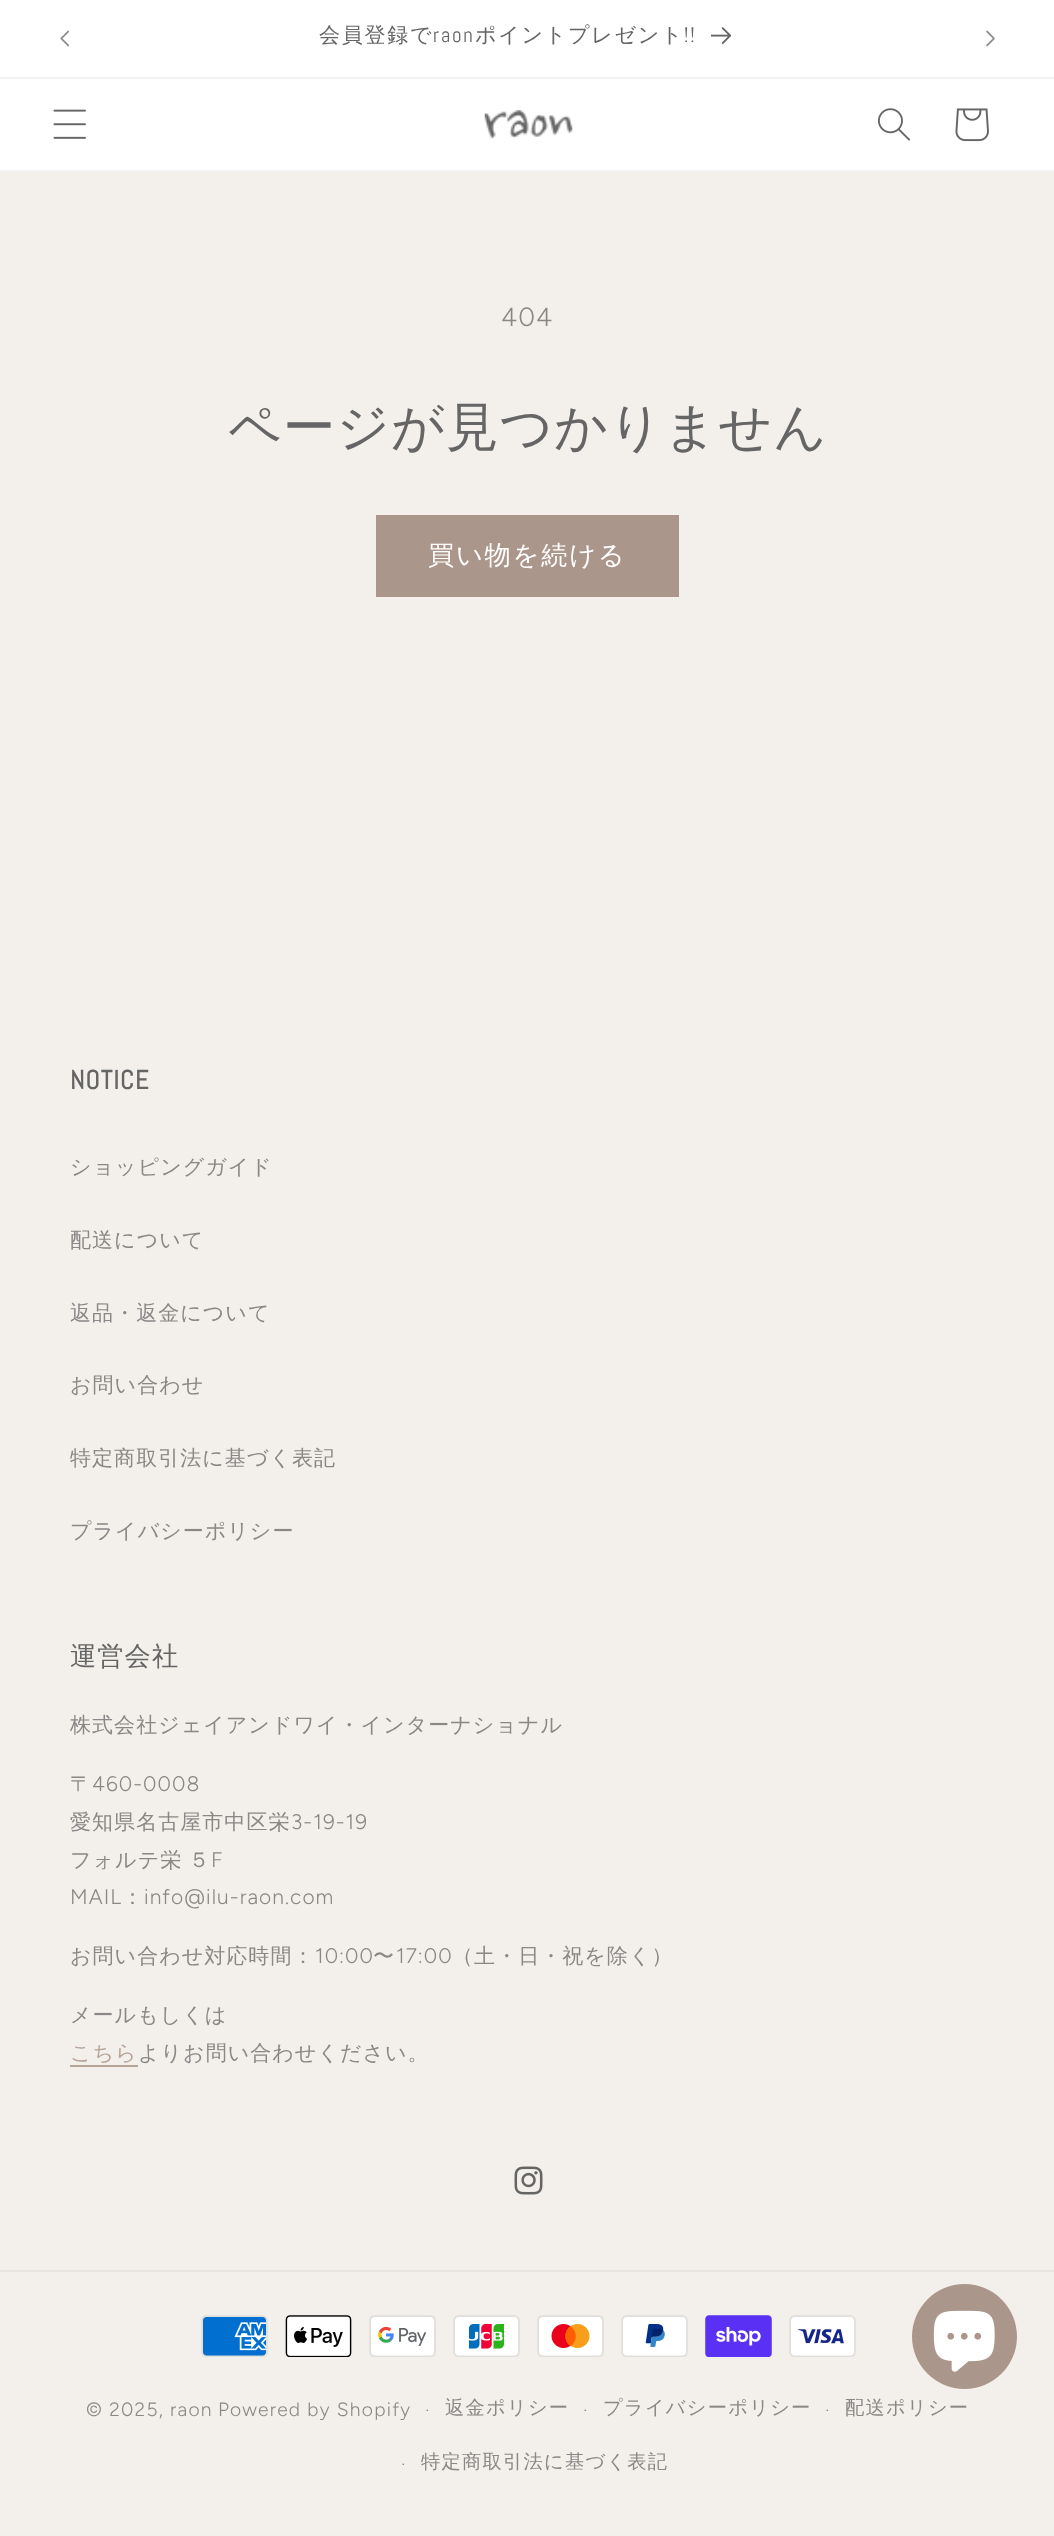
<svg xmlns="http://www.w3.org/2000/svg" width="1054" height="2536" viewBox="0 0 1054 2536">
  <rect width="100%" height="100%" fill="#f3f0eb"/>
  <path d="M0 0h1054v77H0z" fill="#fff"/>
  <path d="M0 77h1054v2H0z" fill="#f3f3f3"/>
  <image x="60" y="30" width="10" height="17" href="img/1.png"/>
  <image x="711" y="27" width="21" height="17" href="img/2.png"/>
  <image x="986" y="30" width="9" height="17" href="img/3.png"/>
  <path d="M0 79h1054v91H0z" fill="#fff"/>
  <path d="M0 170h1054v2H0z" fill="#f3f3f3"/>
  <image x="53" y="109" width="33" height="30" href="img/4.png"/>
  <image x="484" y="110" width="89" height="29" href="img/5.png"/>
  <image x="878" y="108" width="32" height="33" href="img/6.png"/>
  <image x="955" y="108" width="34" height="34" href="img/7.png"/>
  <path d="M376 515h303v82H376z" fill="#ab968b"/>
  <path d="M70 2065h68v2H70z" fill="#b6a499"/>
  <image x="514" y="2166" width="29" height="29" href="img/8.png"/>
  <path d="M0 2270h1054v2H0z" fill="#e8e5e0"/>
  <image x="201" y="2315" width="67" height="42" href="img/9.png"/>
  <image x="285" y="2315" width="67" height="42" href="img/10.png"/>
  <image x="369" y="2315" width="67" height="42" href="img/11.png"/>
  <image x="453" y="2315" width="67" height="42" href="img/12.png"/>
  <image x="537" y="2315" width="67" height="42" href="img/13.png"/>
  <image x="621" y="2315" width="67" height="42" href="img/14.png"/>
  <image x="705" y="2315" width="67" height="42" href="img/15.png"/>
  <image x="789" y="2315" width="67" height="42" href="img/16.png"/>
  <circle cx="964.5" cy="2336.5" r="52.5" fill="#ab968b"/>
  <image x="933" y="2310" width="62" height="62" href="img/17.png"/>
  <text x="319" y="42" font-family="WenQuanYi Zen Hei" font-size="21" font-weight="500" letter-spacing="1.75" fill="#656565">会員登録で</text>
  <text x="433" y="42" font-family="Abel" font-size="21" letter-spacing="1.75" fill="#656565">raon</text>
  <text x="475" y="42" font-family="WenQuanYi Zen Hei" font-size="21" font-weight="500" letter-spacing="1.75" fill="#656565">ポイントプレゼント</text>
  <text x="684" y="42" font-family="Abel" font-size="21" letter-spacing="1.75" fill="#656565">!!</text>
  <text x="501" y="326" font-family="Figtree" font-size="26.25" font-weight="300" letter-spacing="1.05" fill="#898887">404</text>
  <text x="228" y="445" font-family="WenQuanYi Zen Hei" font-size="52.5" font-weight="500" letter-spacing="1.05" fill="#656565">ページが見つかりません</text>
  <text x="428" y="564" font-family="WenQuanYi Zen Hei" font-size="26.25" font-weight="500" letter-spacing="1.75" fill="#fff">買い物を続ける</text>
  <text x="70" y="1089" font-family="Abel" font-size="26.25" font-weight="bold" letter-spacing="1.05" fill="#656565">NOTICE</text>
  <g font-family="WenQuanYi Zen Hei" font-size="21" font-weight="500" letter-spacing="1.05" fill="#898887">
    <text x="70" y="1174">ショッピングガイド</text>
    <text x="70" y="1247">配送について</text>
    <text x="70" y="1320">返品・返金について</text>
    <text x="70" y="1392">お問い合わせ</text>
    <text x="70" y="1465">特定商取引法に基づく表記</text>
    <text x="70" y="1538">プライバシーポリシー</text>
  </g>
  <text x="70" y="1665" font-family="WenQuanYi Zen Hei" font-size="26.25" font-weight="500" letter-spacing="1.05" fill="#656565">運営会社</text>
  <g font-family="WenQuanYi Zen Hei" font-size="21" font-weight="500" letter-spacing="1.05" fill="#898887">
    <text x="70" y="1732">株式会社ジェイアンドワイ・インターナショナル</text>
    <text x="70" y="1791">〒</text>
  </g>
  <text x="92" y="1791" font-family="Figtree" font-size="21" font-weight="300" letter-spacing="1.05" fill="#898887">460-0008</text>
  <text x="70" y="1829" font-family="WenQuanYi Zen Hei" font-size="21" font-weight="500" letter-spacing="1.05" fill="#898887">愛知県名古屋市中区栄</text>
  <text x="291" y="1829" font-family="Figtree" font-size="21" font-weight="300" letter-spacing="1.05" fill="#898887">3-19-19</text>
  <text x="70" y="1867" word-spacing="-1" font-family="WenQuanYi Zen Hei" font-size="21" font-weight="500" letter-spacing="1.05" fill="#898887">フォルテ栄 ５</text>
  <g font-family="Figtree" font-size="21" font-weight="300" letter-spacing="1.05" fill="#898887">
    <text x="211" y="1867">F</text>
    <text x="70" y="1904">MAIL</text>
  </g>
  <text x="122" y="1904" font-family="WenQuanYi Zen Hei" font-size="21" font-weight="500" letter-spacing="1.05" fill="#898887">：</text>
  <text x="144" y="1904" font-family="Figtree" font-size="21" font-weight="300" letter-spacing="1.05" fill="#898887">info@ilu-raon.com</text>
  <text x="70" y="1963" font-family="WenQuanYi Zen Hei" font-size="21" font-weight="500" letter-spacing="1.05" fill="#898887">お問い合わせ対応時間：</text>
  <text x="315" y="1963" font-family="Figtree" font-size="21" font-weight="300" letter-spacing="1.05" fill="#898887">10:00</text>
  <text x="373" y="1963" font-family="WenQuanYi Zen Hei" font-size="21" font-weight="500" letter-spacing="1.05" fill="#898887">〜</text>
  <text x="396" y="1963" font-family="Figtree" font-size="21" font-weight="300" letter-spacing="1.05" fill="#898887">17:00</text>
  <g font-family="WenQuanYi Zen Hei" font-size="21" font-weight="500" letter-spacing="1.05" fill="#898887">
    <text x="452" y="1963">（土・日・祝を除く）</text>
    <text x="70" y="2022">メールもしくは</text>
  </g>
  <text x="70" y="2060" font-family="WenQuanYi Zen Hei" font-size="21" font-weight="500" letter-spacing="1.05" fill="#b6a499">こちら</text>
  <text x="138" y="2060" font-family="WenQuanYi Zen Hei" font-size="21" font-weight="500" letter-spacing="1.05" fill="#898887">よりお問い合わせください。</text>
  <g font-family="Figtree" font-size="19.25" font-weight="300" letter-spacing="1.25" fill="#898887">
    <text x="86" y="2416">© 2025, raon</text>
    <text x="218" y="2416">Powered by Shopify</text>
  </g>
  <text x="425" y="2416" font-family="Figtree" font-size="18" font-weight="300" letter-spacing="1.25" fill="#898887">·</text>
  <text x="445" y="2414" font-family="WenQuanYi Zen Hei" font-size="19.25" font-weight="500" letter-spacing="1.25" fill="#898887">返金ポリシー</text>
  <text x="583" y="2416" font-family="Figtree" font-size="18" font-weight="300" letter-spacing="1.25" fill="#898887">·</text>
  <text x="603" y="2414" font-family="WenQuanYi Zen Hei" font-size="19.25" font-weight="500" letter-spacing="1.25" fill="#898887">プライバシーポリシー</text>
  <text x="825" y="2416" font-family="Figtree" font-size="18" font-weight="300" letter-spacing="1.25" fill="#898887">·</text>
  <text x="845" y="2414" font-family="WenQuanYi Zen Hei" font-size="19.25" font-weight="500" letter-spacing="1.25" fill="#898887">配送ポリシー</text>
  <text x="401" y="2470" font-family="Figtree" font-size="18" font-weight="300" letter-spacing="1.25" fill="#898887">·</text>
  <text x="421" y="2468" font-family="WenQuanYi Zen Hei" font-size="19.25" font-weight="500" letter-spacing="1.25" fill="#898887">特定商取引法に基づく表記</text>
</svg>
